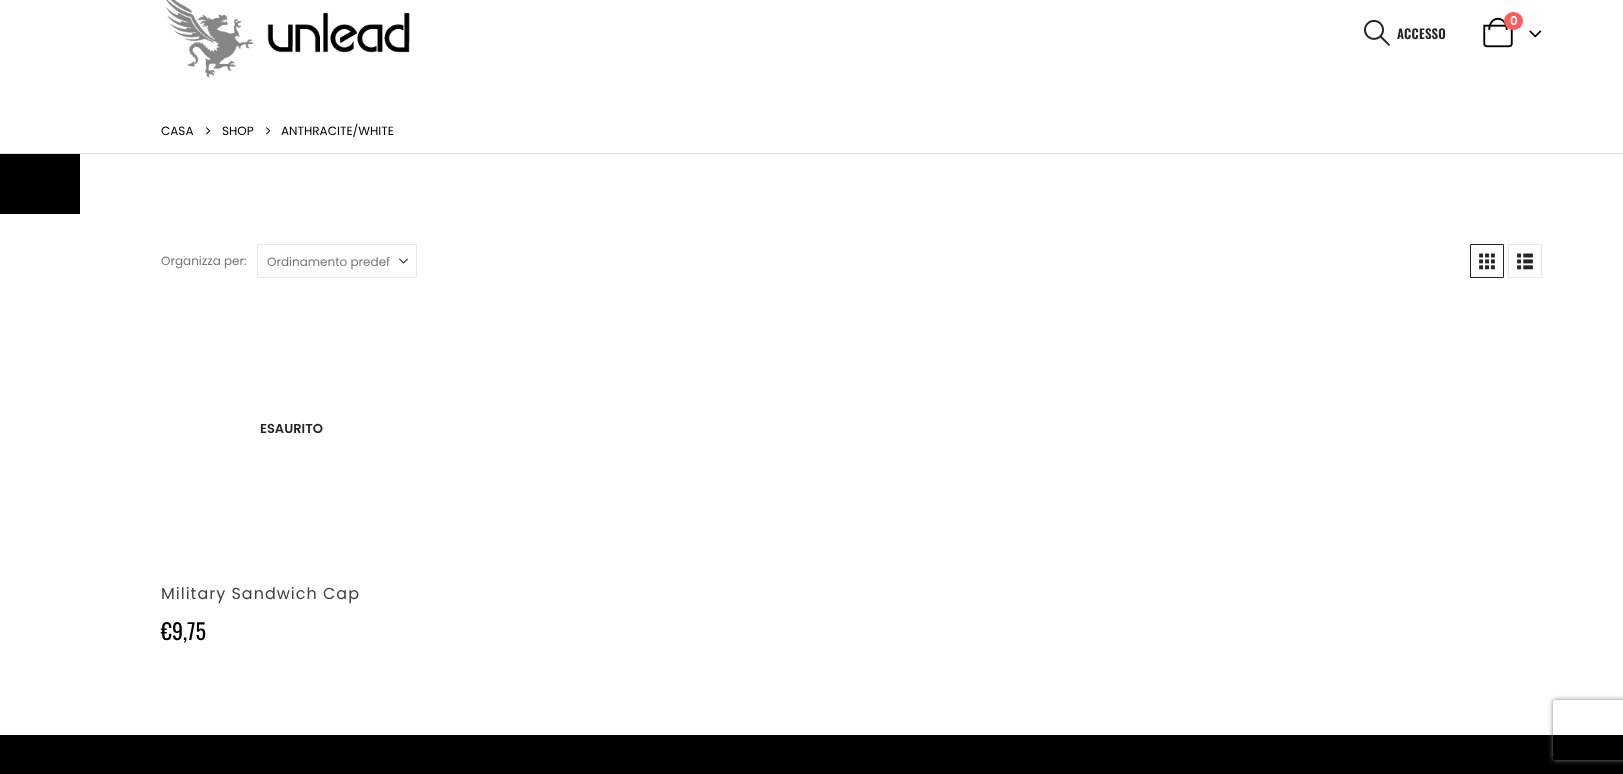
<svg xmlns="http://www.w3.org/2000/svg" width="1623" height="774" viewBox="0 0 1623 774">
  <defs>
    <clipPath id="clip1"><path d="M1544 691H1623V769H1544ZM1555 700H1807C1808 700 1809 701 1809 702V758C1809 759 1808 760 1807 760H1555C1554 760 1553 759 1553 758V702C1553 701 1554 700 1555 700Z" clip-rule="evenodd"/></clipPath>
  </defs>
  <rect width="100%" height="100%" fill="#fff"/>
  <image x="166" y="0" width="244" height="78" href="img/1.png"/>
  <image x="1483" y="17" width="30" height="31" href="img/2.png"/>
  <rect x="1504" y="12" width="19" height="18" rx="9" fill="#ff5b5b"/>
  <image x="1529" y="30" width="13" height="8" href="img/3.png"/>
  <image x="1364" y="19" width="26" height="27" href="img/4.png"/>
  <path d="M0 153h1623v1H0z" fill="#dfdfdf"/>
  <image x="206" y="127" width="5" height="8" href="img/5.png"/>
  <image x="266" y="127" width="5" height="8" href="img/5.png"/>
  <path d="M0 154h80v60H0z" fill="#000"/>
  <image x="399" y="258" width="9" height="6" href="img/6.png"/>
  <path d="M257.5 244.5h159v33H257.5z" fill="none" stroke="#e7e7e7"/>
  <path d="M1470.5 244.5h33v33H1470.5z" fill="none" stroke="#222529"/>
  <image x="1479" y="253" width="16" height="17" href="img/7.png"/>
  <path d="M1508.5 244.5h33v33H1508.5z" fill="none" stroke="#e7e7e7"/>
  <image x="1517" y="253" width="16" height="17" href="img/8.png"/>
  <path d="M0 735h1623v39H0z" fill="#000"/>
  <g clip-path="url(#clip1)">
    <rect x="1553" y="700" width="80" height="60" rx="2" fill="#808080" filter="blur(2.5px)"/>
  </g>
  <text x="1510" y="25" font-family="Poppins" font-size="12" font-weight="600" fill="#fff">0</text>
  <text x="1397" y="39" font-family="Oswald" font-size="13" font-weight="600" letter-spacing="0.25" fill="#222529">ACCESSO</text>
  <g font-family="Poppins" font-size="12" fill="#000">
    <text x="161" y="135">CASA</text>
    <text x="222" y="135">SHOP</text>
    <text x="281" y="135">ANTHRACITE/WHITE</text>
  </g>
  <g font-family="Poppins" font-size="12" fill="#777">
    <text x="161" y="265">Organizza per:</text>
    <text x="267" y="266">Ordinamento predef</text>
  </g>
  <text x="260" y="433" font-family="Poppins" font-size="13" font-weight="600" fill="#222529">ESAURITO</text>
  <text x="161" y="599" font-family="Poppins" font-size="16" letter-spacing="1" fill="#424242">Military Sandwich Cap</text>
  <text x="161" y="640" font-family="Oswald" font-size="22" fill="#000">€9,75</text>
</svg>
